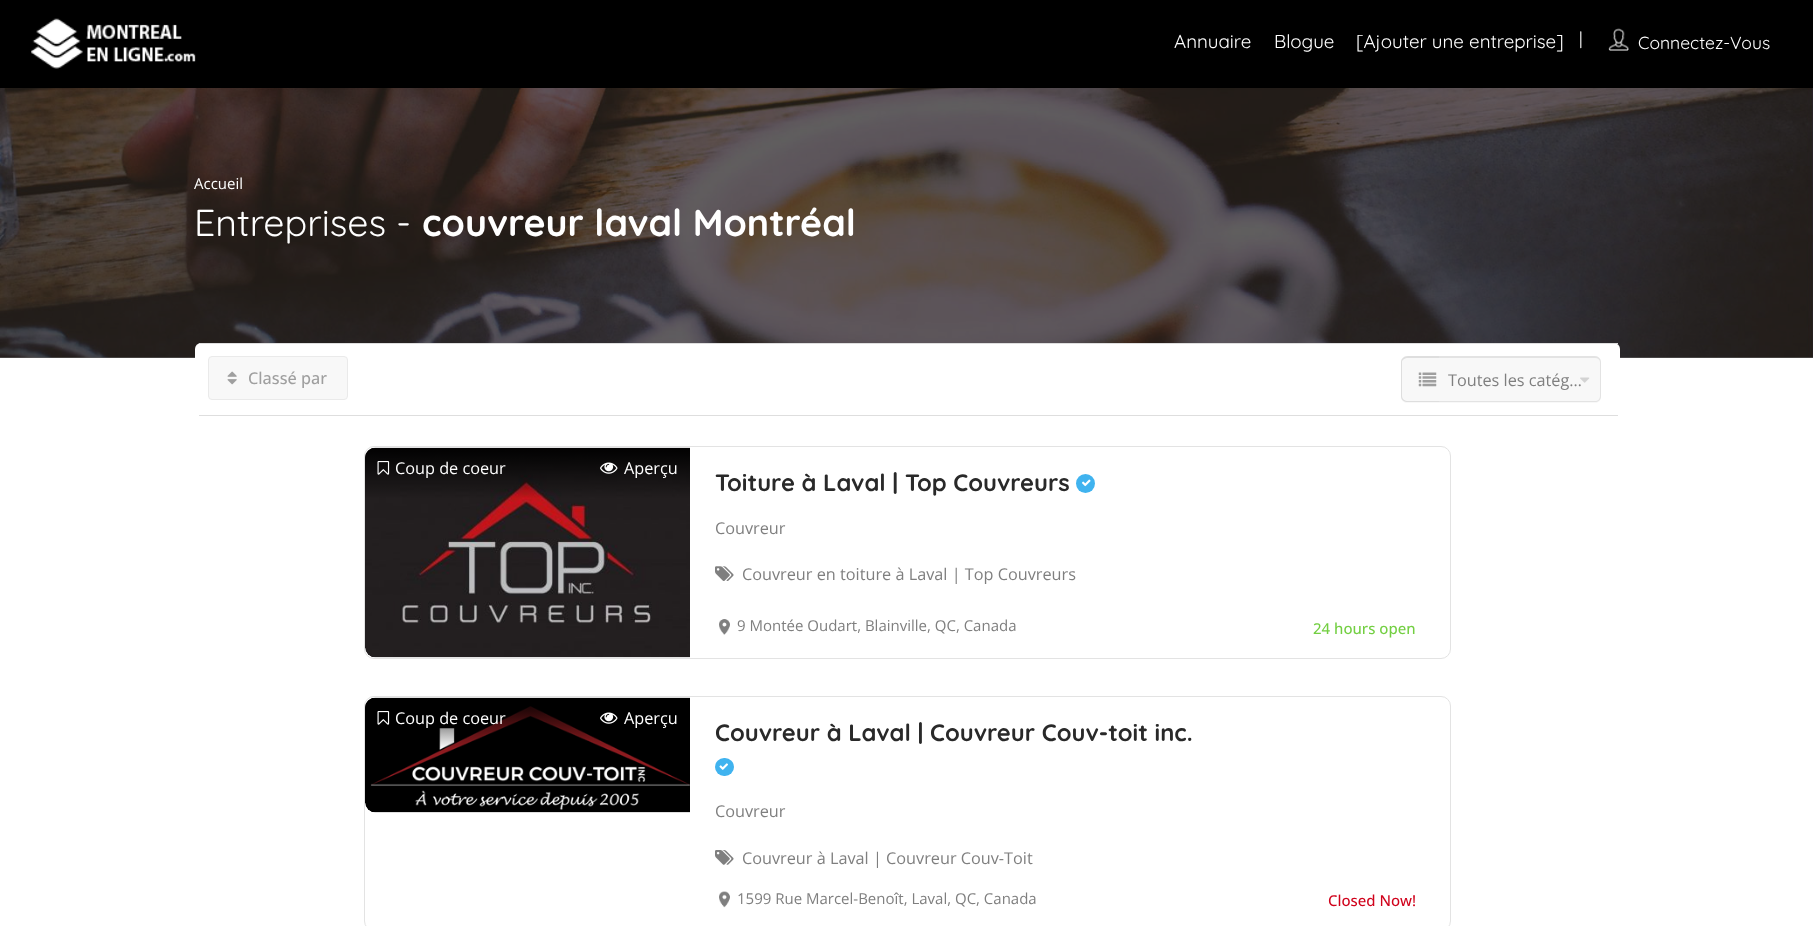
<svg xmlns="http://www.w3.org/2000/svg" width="1813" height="926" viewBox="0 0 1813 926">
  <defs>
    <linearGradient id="g1" gradientUnits="userSpaceOnUse" x1="528" y1="503" x2="528" y2="448"><stop offset="0.08" stop-color="#000" stop-opacity="0"/><stop offset="0.94" stop-color="#000" stop-opacity="0.9"/></linearGradient>
    <linearGradient id="g2" gradientUnits="userSpaceOnUse" x1="528" y1="753" x2="528" y2="698"><stop offset="0.08" stop-color="#000" stop-opacity="0"/><stop offset="0.94" stop-color="#000" stop-opacity="0.9"/></linearGradient>
  </defs>
  <rect width="100%" height="100%" fill="#fff"/>
  <path d="M0 357h1813v1H0z" fill="#666"/>
  <path d="M0 0h1813v88H0z" fill="#000"/>
  <image x="31" y="18" width="165" height="51" href="img/1.png"/>
  <image x="1608" y="28" width="21" height="23" href="img/2.png"/>
  <image x="0" y="88" width="1813" height="270" href="img/3.png"/>
  <rect x="195" y="343" width="1425" height="73" rx="6" fill="#fff"/>
  <path d="M199 343h1419v1H199z" fill="#dedede"/>
  <path d="M199 415h1419v1H199z" fill="#dedede"/>
  <rect x="208.5" y="356.5" width="139" height="43" rx="3.5" fill="#f8f8f8" stroke="#eaeaea"/>
  <image x="227" y="371" width="10" height="14" href="img/4.png"/>
  <path d="M1407 356H1439V403H1407C1403.5 403 1401 400.5 1401 397V362C1401 358.5 1403.5 356 1407 356Z" fill="#f8f8f8"/>
  <path d="M1408 356H1439V402H1408C1404 402 1401 400 1401 396V362C1401 359 1404 356 1408 356ZM1408 358H1439V401H1408C1405 401 1402 399 1402 396V362C1402 360 1405 358 1408 358Z" fill="#dedede" fill-rule="evenodd"/>
  <image x="1418" y="372" width="19" height="15" href="img/5.png"/>
  <path d="M1439 356H1595C1598.5 356 1601 358.5 1601 362V397C1601 400.5 1598.5 403 1595 403H1439Z" fill="#f8f8f8"/>
  <path d="M1439 356H1595C1598 356 1601 359 1601 362V396C1601 400 1598 402 1595 402H1439ZM1439 358H1595C1598 358 1600 360 1600 362V396C1600 399 1598 401 1595 401H1439Z" fill="#e3e3e3" fill-rule="evenodd"/>
  <rect x="364.5" y="446.5" width="1086" height="212" rx="9.5" fill="none" stroke="#e3e3e3"/>
  <image x="365" y="447" width="325" height="211" href="img/7.png"/>
  <path d="M375 448H690V503H365V458C365 452.5 369.5 448 375 448Z" fill="url(#g1)"/>
  <image x="377" y="461" width="13" height="14" href="img/8.png"/>
  <image x="600" y="462" width="18" height="12" href="img/9.png"/>
  <circle cx="1085.5" cy="483.5" r="9.5" fill="#40b3ef"/>
  <image x="1082" y="479" width="9" height="8" href="img/10.png"/>
  <image x="715" y="566" width="19" height="15" href="img/11.png"/>
  <image x="719" y="619" width="11" height="16" href="img/12.png"/>
  <rect x="364.5" y="696.5" width="1086" height="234" rx="9.5" fill="none" stroke="#e3e3e3"/>
  <image x="365" y="697" width="325" height="116" href="img/13.png"/>
  <path d="M375 698H690V753H365V708C365 702.5 369.5 698 375 698Z" fill="url(#g2)"/>
  <image x="377" y="711" width="13" height="14" href="img/14.png"/>
  <image x="600" y="712" width="18" height="12" href="img/15.png"/>
  <rect x="715" y="758" width="19" height="18" rx="9" fill="#40b3ef"/>
  <image x="719" y="763" width="9" height="7" href="img/16.png"/>
  <image x="715" y="850" width="19" height="15" href="img/17.png"/>
  <image x="719" y="891" width="11" height="17" href="img/18.png"/>
  <g font-family="Quicksand" font-size="18.75" fill="#fff">
    <text x="1174" y="48">Annuaire</text>
    <text x="1274" y="48">Blogue</text>
    <text x="1356" y="48">[Ajouter une entreprise]</text>
  </g>
  <g font-family="Quicksand" font-size="17.5" fill="#fff">
    <text x="1579" y="45">|</text>
    <text x="1638" y="49">Connectez-Vous</text>
  </g>
  <text x="194" y="189" font-family="Open Sans" font-size="15" fill="#fff">Accueil</text>
  <text x="194" y="236" font-family="Quicksand" font-size="37.5" fill="#fff">Entreprises -</text>
  <text x="422" y="236" font-family="Quicksand" font-size="37.5" font-weight="bold" fill="#fff">couvreur laval Montréal</text>
  <text x="248" y="384" font-family="Open Sans" font-size="16.25" font-weight="500" fill="#9f9f9f">Classé par</text>
  <text x="1448" y="386" font-family="Open Sans" font-size="16.25" fill="#7f7f7f">Toutes les catég…</text>
  <image x="1580" y="377" width="10" height="6" href="img/6.png"/>
  <g font-family="Open Sans" font-size="16.25" fill="#fff">
    <text x="395" y="474">Coup de coeur</text>
    <text x="624" y="474">Aperçu</text>
  </g>
  <text x="715" y="491" font-family="Quicksand" font-size="23.75" font-weight="bold" fill="#292929">Toiture à Laval | Top Couvreurs</text>
  <g font-family="Open Sans" font-size="16.25" fill="#7f7f7f">
    <text x="715" y="534">Couvreur</text>
    <text x="742" y="580">Couvreur en toiture à Laval | Top Couvreurs</text>
  </g>
  <text x="737" y="631" font-family="Open Sans" font-size="15" fill="#7f7f7f">9 Montée Oudart, Blainville, QC, Canada</text>
  <text x="1313" y="634" font-family="Open Sans" font-size="15" font-weight="500" fill="#73cf42">24 hours open</text>
  <g font-family="Open Sans" font-size="16.25" fill="#fff">
    <text x="395" y="724">Coup de coeur</text>
    <text x="624" y="724">Aperçu</text>
  </g>
  <text x="715" y="741" font-family="Quicksand" font-size="23.75" font-weight="bold" fill="#292929">Couvreur à Laval | Couvreur Couv-toit inc.</text>
  <g font-family="Open Sans" font-size="16.25" fill="#7f7f7f">
    <text x="715" y="817">Couvreur</text>
    <text x="742" y="864">Couvreur à Laval | Couvreur Couv-Toit</text>
  </g>
  <text x="737" y="904" font-family="Open Sans" font-size="15" fill="#7f7f7f">1599 Rue Marcel-Benoît, Laval, QC, Canada</text>
  <text x="1328" y="906" font-family="Open Sans" font-size="15" font-weight="500" fill="#d0021b">Closed Now!</text>
</svg>
